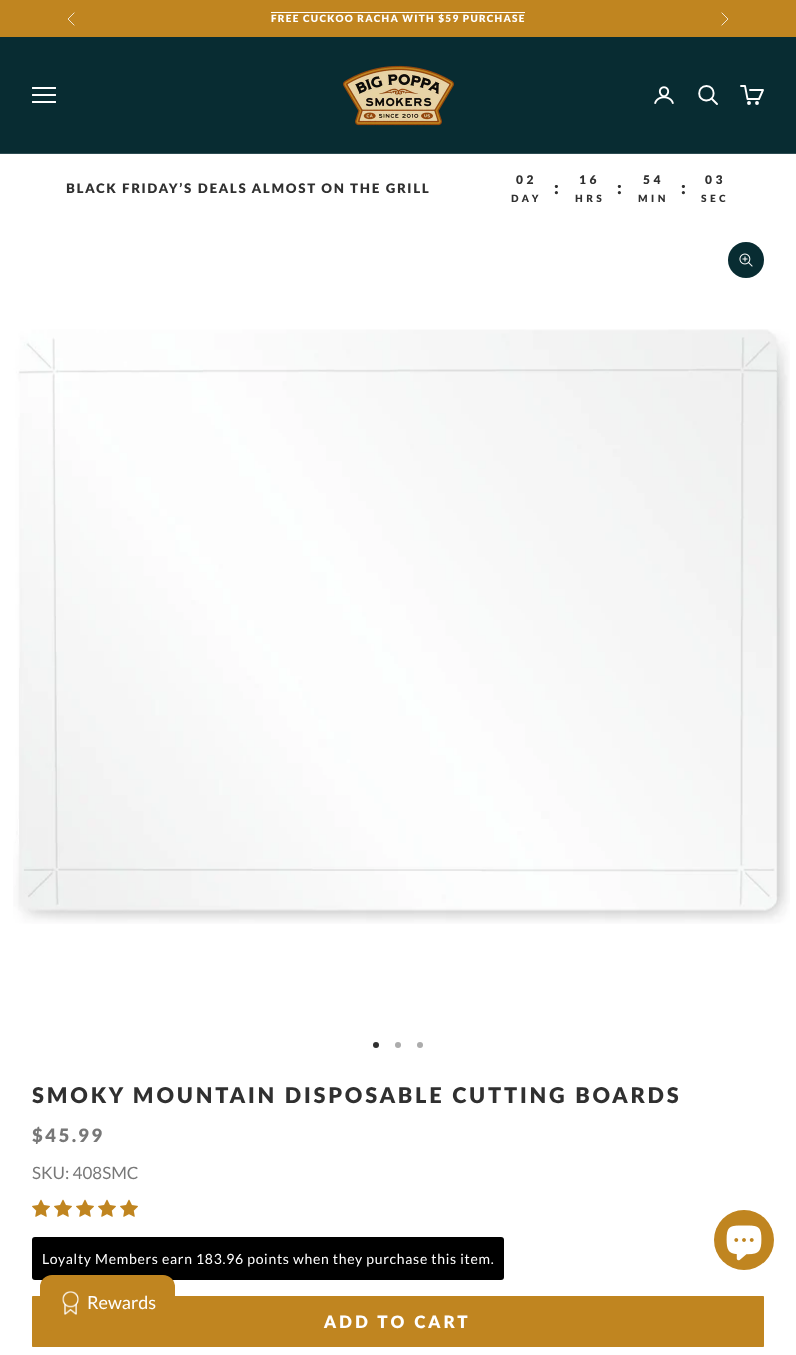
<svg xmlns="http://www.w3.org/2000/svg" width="796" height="1355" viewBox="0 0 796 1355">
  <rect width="100%" height="100%" fill="#fff"/>
  <path d="M0 0h796v37H0z" fill="#c08520"/>
  <path d="M74 13L68 19L74 25" fill="none" stroke="#fff" stroke-width="0.8" stroke-linecap="square"/>
  <path d="M271 12h254v1H271z" fill="#fff"/>
  <path d="M722 25L728 19L722 13" fill="none" stroke="#fff" stroke-width="0.8" stroke-linecap="square"/>
  <path d="M0 37h796v116H0z" fill="#082c32"/>
  <path d="M0 153h796v1H0z" fill="#2d4c51"/>
  <path d="M33 102H55M33 95H55M33 88H55" fill="none" stroke="#fff" stroke-width="1.9" stroke-linecap="square"/>
  <image x="343" y="65" width="111" height="61" href="img/1.png"/>
  <image x="654" y="86" width="20" height="18" href="img/2.png"/>
  <path d="M706.5 86C696.5 86 697 101 706.5 100.5C716 100.5 716 86 706.5 86Z" fill="none" stroke="#fff" stroke-width="1.9"/>
  <path d="M712 99L717 104" fill="none" stroke="#fff" stroke-width="1.9" stroke-linecap="round"/>
  <path d="M750 90H763L759 99H747.5L745 86H741" fill="none" stroke="#fff" stroke-width="1.9" stroke-linecap="round" stroke-linejoin="round"/>
  <circle cx="749" cy="103" r="1" fill="none" stroke="#fff" stroke-width="1.9"/>
  <circle cx="757" cy="103" r="1" fill="none" stroke="#fff" stroke-width="1.9"/>
  <circle cx="746" cy="260" r="18" fill="#082c32"/>
  <image x="739" y="253" width="14" height="14" href="img/3.png"/>
  <image x="13" y="329" width="777" height="595" href="img/4.png"/>
  <circle cx="376" cy="1045" r="3" fill="#303030"/>
  <circle cx="398" cy="1045" r="3" fill="#acacac"/>
  <circle cx="420" cy="1045" r="3" fill="#acacac"/>
  <image x="32" y="1199" width="18" height="18" href="img/5.png"/>
  <image x="54" y="1199" width="18" height="18" href="img/5.png"/>
  <image x="76" y="1199" width="18" height="18" href="img/5.png"/>
  <image x="98" y="1199" width="18" height="18" href="img/5.png"/>
  <image x="120" y="1199" width="18" height="18" href="img/5.png"/>
  <rect x="32" y="1237" width="472" height="43" rx="3" fill="#000"/>
  <path d="M32.5 1296.5h731v50H32.5z" fill="#c08520" stroke="#c08520"/>
  <circle cx="744" cy="1240" r="30" fill="#c08520"/>
  <image x="726" y="1225" width="36" height="36" href="img/6.png"/>
  <rect x="40" y="1275" width="135" height="56" rx="12" fill="#c08520"/>
  <image x="62" y="1291" width="17" height="24" href="img/7.png"/>
  <text x="271" y="22" font-family="Lato" font-size="10" font-weight="900" letter-spacing="1.3" fill="#fff">FREE CUCKOO RACHA WITH $59 PURCHASE</text>
  <text x="66" y="193" font-family="Lato" font-size="13.2" font-weight="800" letter-spacing="1.7" fill="#303030">BLACK FRIDAY’S DEALS ALMOST ON THE GRILL</text>
  <text x="516" y="184" font-family="Lato" font-size="12" font-weight="900" letter-spacing="3.5" fill="#303030">02</text>
  <text x="511" y="202" font-family="Lato" font-size="10" font-weight="800" letter-spacing="3.5" fill="#303030">DAY</text>
  <text x="554" y="194" font-family="Lato" font-size="18" font-weight="800" letter-spacing="3.5" fill="#303030">:</text>
  <text x="579" y="184" font-family="Lato" font-size="12" font-weight="900" letter-spacing="3.5" fill="#303030">16</text>
  <text x="575" y="202" font-family="Lato" font-size="10" font-weight="800" letter-spacing="3.5" fill="#303030">HRS</text>
  <text x="617" y="194" font-family="Lato" font-size="18" font-weight="800" letter-spacing="3.5" fill="#303030">:</text>
  <text x="643" y="184" font-family="Lato" font-size="12" font-weight="900" letter-spacing="3.5" fill="#303030">54</text>
  <text x="638" y="202" font-family="Lato" font-size="10" font-weight="800" letter-spacing="3.5" fill="#303030">MIN</text>
  <text x="681" y="194" font-family="Lato" font-size="18" font-weight="800" letter-spacing="3.5" fill="#303030">:</text>
  <text x="705" y="184" font-family="Lato" font-size="12" font-weight="900" letter-spacing="3.5" fill="#303030">03</text>
  <text x="701" y="202" font-family="Lato" font-size="10" font-weight="800" letter-spacing="3.5" fill="#303030">SEC</text>
  <text x="32" y="1103" font-family="Lato" font-size="21.6" font-weight="800" letter-spacing="2.8" fill="#303030">SMOKY MOUNTAIN DISPOSABLE CUTTING BOARDS</text>
  <text x="32" y="1142" font-family="Lato" font-size="18.5" font-weight="800" letter-spacing="2.5" fill="#787878">$45.99</text>
  <text x="32" y="1179" font-family="Lato" font-size="17" fill="#787878">SKU: 408SMC</text>
  <text x="42" y="1264" font-family="Lato" font-size="14" letter-spacing="0.7" fill="#fff">Loyalty Members earn 183.96 points when they purchase this item.</text>
  <text x="324" y="1328" font-family="Lato" font-size="17" font-weight="800" letter-spacing="3" fill="#fff">ADD TO CART</text>
  <text x="87" y="1309" font-family="Lato" font-size="18" fill="#fff">Rewards</text>
</svg>
